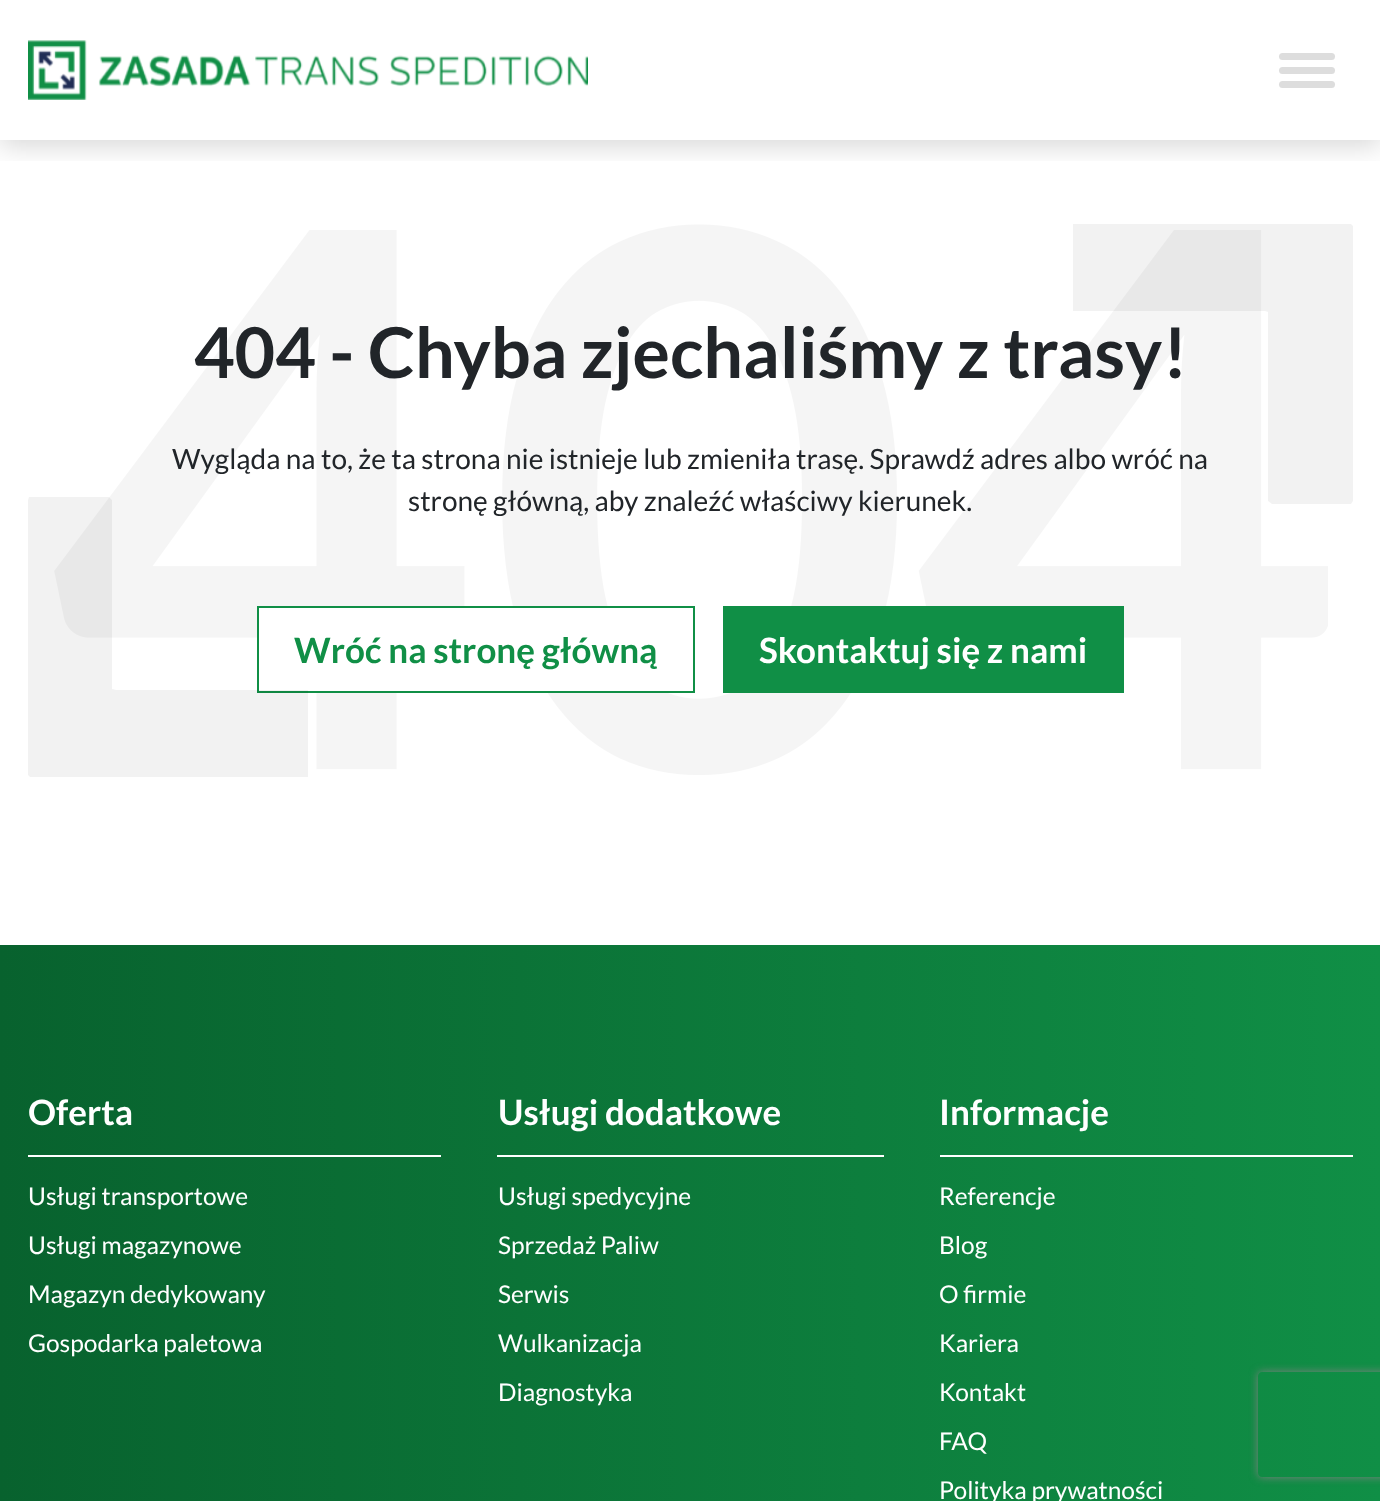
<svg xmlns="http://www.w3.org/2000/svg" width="1380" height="1501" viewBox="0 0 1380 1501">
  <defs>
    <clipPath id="clip1"><path d="M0 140h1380v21H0z"/></clipPath>
    <linearGradient id="g1" gradientUnits="userSpaceOnUse" x1="0" y1="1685" x2="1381" y2="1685"><stop offset="0" stop-color="#08622e"/><stop offset="1" stop-color="#108f46"/></linearGradient>
    <clipPath id="clip2"><path d="M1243 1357H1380V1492H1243ZM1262 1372H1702C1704 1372 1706 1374 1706 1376V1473C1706 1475 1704 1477 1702 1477H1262C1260 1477 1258 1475 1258 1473V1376C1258 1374 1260 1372 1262 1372Z" clip-rule="evenodd"/></clipPath>
  </defs>
  <rect width="100%" height="100%" fill="#fff"/>
  <g clip-path="url(#clip1)">
    <path d="M0 7h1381v140H0z" fill="#00000026" filter="blur(13px)"/>
  </g>
  <image x="28" y="40" width="560" height="60" href="img/1.png"/>
  <rect x="1279" y="53" width="56" height="7" rx="3.5" fill="#ddd"/>
  <rect x="1279" y="67" width="56" height="7" rx="3.5" fill="#ddd"/>
  <rect x="1279" y="81" width="56" height="7" rx="3.5" fill="#ddd"/>
  <image x="54" y="224" width="1274" height="551" href="img/2.png"/>
  <path d="M259 608h404v83H259z" fill="#fff"/>
  <path d="M258 607h436v85H258z" fill="none" stroke="#108f46" stroke-width="2"/>
  <path d="M308 690V777H30L28 775V500L29 497H109L112 500V689C114 689 115 690 116 690Z" fill="#0000000d"/>
  <path d="M723 606h401v87H723z" fill="#108f46"/>
  <path d="M1073 311V224H1351L1353 226V501L1351 504H1272L1268 501V312C1267 312 1266 311 1265 311Z" fill="#0000000d"/>
  <path d="M0 945h1380v556H0z" fill="url(#g1)"/>
  <path d="M28 1155h413v2H28z" fill="#fff"/>
  <path d="M497 1155h387v2H497z" fill="#fff"/>
  <path d="M940 1155h413v2H940z" fill="#fff"/>
  <g clip-path="url(#clip2)">
    <rect x="1258" y="1372" width="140" height="105" rx="4" fill="#808080" filter="blur(4.5px)"/>
  </g>
  <text x="194" y="378" font-family="Lato" font-size="70" font-weight="bold" fill="#212529">404 - Chyba zjechaliśmy z trasy!</text>
  <g font-family="Lato" font-size="28" fill="#212529">
    <text x="172" y="469">Wygląda na to, że ta strona nie istnieje lub zmieniła trasę. Sprawdź adres albo wróć na</text>
    <text x="408" y="511">stronę główną, aby znaleźć właściwy kierunek.</text>
  </g>
  <text x="294" y="663" font-family="Lato" font-size="35" font-weight="bold" fill="#108f46">Wróć na stronę główną</text>
  <g font-family="Lato" font-size="35" font-weight="bold" fill="#fff">
    <text x="759" y="663">Skontaktuj się z nami</text>
    <text x="28" y="1125">Oferta</text>
  </g>
  <g font-family="Lato" font-size="24.5" fill="#fff">
    <text x="28" y="1205">Usługi transportowe</text>
    <text x="28" y="1254">Usługi magazynowe</text>
    <text x="28" y="1303">Magazyn dedykowany</text>
    <text x="28" y="1352">Gospodarka paletowa</text>
  </g>
  <text x="498" y="1125" font-family="Lato" font-size="35" font-weight="bold" fill="#fff">Usługi dodatkowe</text>
  <g font-family="Lato" font-size="24.5" fill="#fff">
    <text x="498" y="1205">Usługi spedycyjne</text>
    <text x="498" y="1254">Sprzedaż Paliw</text>
    <text x="498" y="1303">Serwis</text>
    <text x="498" y="1352">Wulkanizacja</text>
    <text x="498" y="1401">Diagnostyka</text>
  </g>
  <text x="939" y="1125" font-family="Lato" font-size="35" font-weight="bold" fill="#fff">Informacje</text>
  <g font-family="Lato" font-size="24.5" fill="#fff">
    <text x="939" y="1205">Referencje</text>
    <text x="939" y="1254">Blog</text>
    <text x="939" y="1303">O firmie</text>
    <text x="939" y="1352">Kariera</text>
    <text x="939" y="1401">Kontakt</text>
    <text x="939" y="1450">FAQ</text>
    <text x="939" y="1499">Polityka prywatności</text>
  </g>
</svg>
